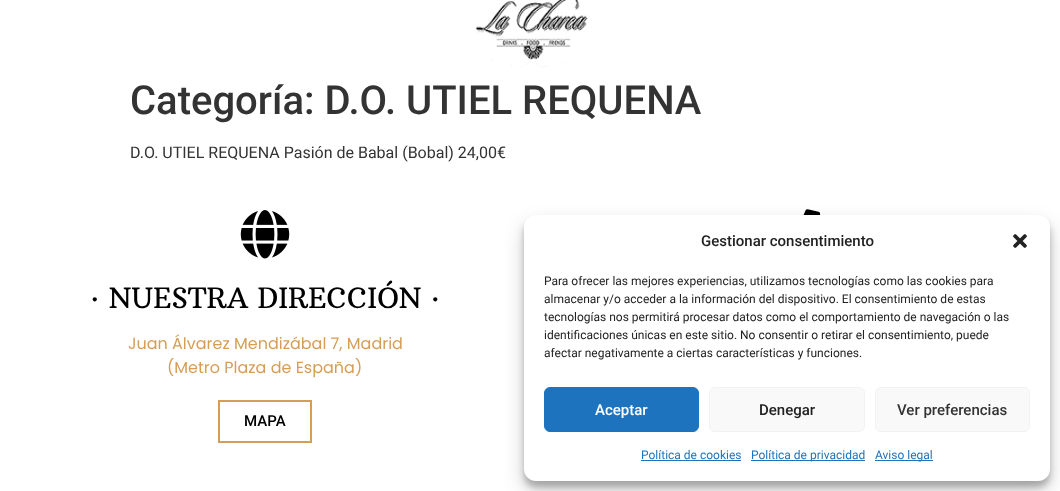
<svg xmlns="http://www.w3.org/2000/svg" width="1060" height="491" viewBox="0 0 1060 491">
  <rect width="100%" height="100%" fill="#fff"/>
  <image x="476" y="0" width="162" height="68" href="img/1.png"/>
  <image x="803" y="209" width="18" height="6" href="img/2.png"/>
  <image x="240" y="210" width="50" height="49" href="img/3.png"/>
  <path d="M219 401h92v41H219z" fill="none" stroke="#d69d56" stroke-width="2"/>
  <rect x="524" y="221" width="526" height="266" rx="12" fill="#0000003b" filter="blur(3px)"/>
  <rect x="524" y="225" width="526" height="266" rx="12" fill="#00000030" filter="blur(10px)"/>
  <rect x="524" y="215" width="526" height="266" rx="12" fill="#fff"/>
  <image x="1013" y="234" width="14" height="14" href="img/4.png"/>
  <rect x="544.5" y="387.5" width="154" height="44" rx="5.5" fill="#1e73be" stroke="#1e73be"/>
  <rect x="709.5" y="387.5" width="155" height="44" rx="5.5" fill="#f9f9f9" stroke="#f2f2f2"/>
  <rect x="875.5" y="387.5" width="154" height="44" rx="5.5" fill="#f9f9f9" stroke="#f2f2f2"/>
  <path d="M641 460h100v1H641z" fill="#1e73be"/>
  <path d="M751 460h114v1H751z" fill="#1e73be"/>
  <path d="M875 460h58v1H875z" fill="#1e73be"/>
  <text x="130" y="114" font-family="Roboto" font-size="40" font-weight="500" fill="#333">Categoría: D.O. UTIEL REQUENA</text>
  <text x="130" y="158" font-family="Roboto" font-size="16" fill="#333">D.O. UTIEL REQUENA Pasión de Babal (Bobal) 24,00€</text>
  <text x="90" y="308" font-family="Arbutus Slab" font-size="28" fill="#000">· NUESTRA DIRECCIÓN ·</text>
  <g font-family="Poppins" font-size="16" fill="#d69d56">
    <text x="128" y="349">Juan Álvarez Mendizábal 7, Madrid</text>
    <text x="167" y="373">(Metro Plaza de España)</text>
  </g>
  <text x="244" y="426" font-family="Roboto" font-size="15" font-weight="500" fill="#000">MAPA</text>
  <text x="701" y="246" font-family="Roboto" font-size="15" font-weight="500" fill="#222">Gestionar consentimiento</text>
  <g font-family="Roboto" font-size="12" fill="#222">
    <text x="544" y="285">Para ofrecer las mejores experiencias, utilizamos tecnologías como las cookies para</text>
    <text x="544" y="303">almacenar y/o acceder a la información del dispositivo. El consentimiento de estas</text>
    <text x="544" y="321">tecnologías nos permitirá procesar datos como el comportamiento de navegación o las</text>
    <text x="544" y="339">identificaciones únicas en este sitio. No consentir o retirar el consentimiento, puede</text>
    <text x="544" y="357">afectar negativamente a ciertas características y funciones.</text>
  </g>
  <text x="595" y="415" font-family="Roboto" font-size="15" font-weight="500" fill="#fff">Aceptar</text>
  <text x="759" y="415" font-family="Roboto" font-size="15" font-weight="500" fill="#222">Denegar</text>
  <text x="897" y="415" font-family="Roboto" font-size="15" font-weight="500" fill="#333">Ver preferencias</text>
  <g font-family="Roboto" font-size="12" fill="#1e73be">
    <text x="641" y="459">Política de cookies</text>
    <text x="751" y="459">Política de privacidad</text>
    <text x="875" y="459">Aviso legal</text>
  </g>
</svg>
